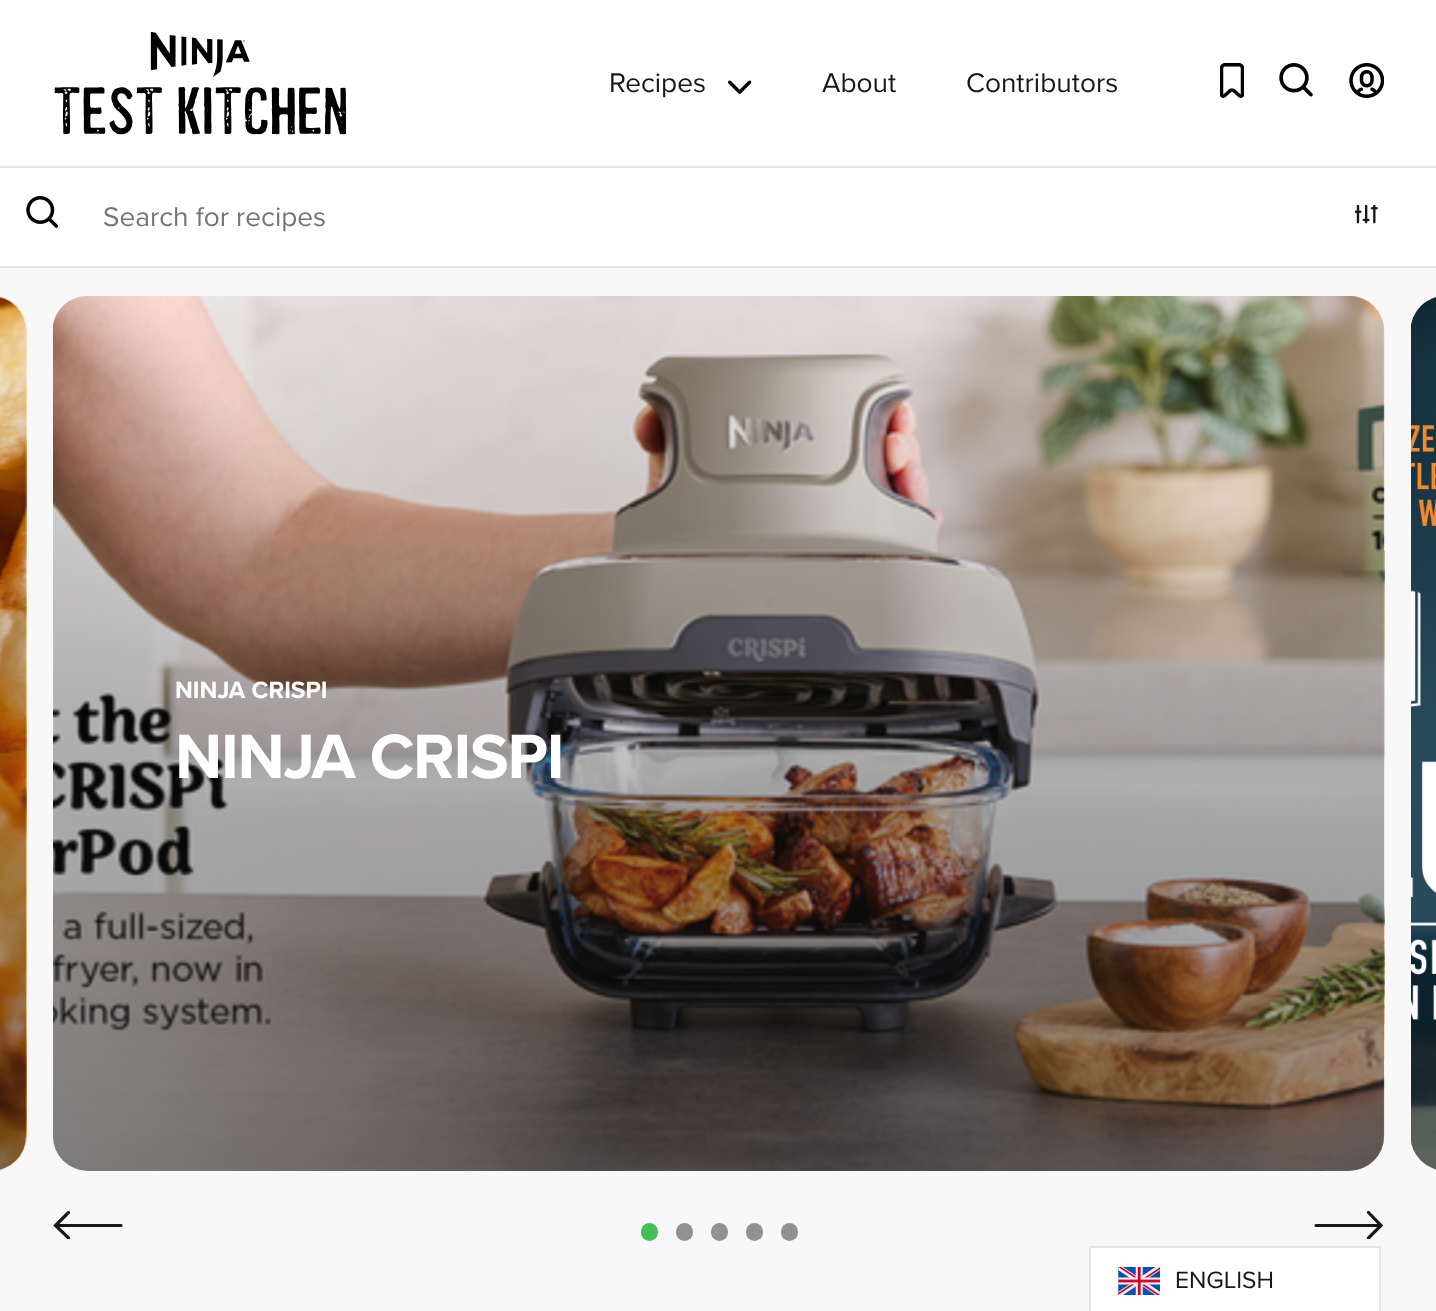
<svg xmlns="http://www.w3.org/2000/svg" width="1436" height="1311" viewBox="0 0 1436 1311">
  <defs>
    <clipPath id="clip1"><rect x="-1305" y="296" width="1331" height="875" rx="35"/></clipPath>
    <linearGradient id="g1" gradientUnits="userSpaceOnUse" x1="-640" y1="1171" x2="-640" y2="296"><stop offset="0" stop-color="#181818" stop-opacity="0.5"/><stop offset="1" stop-color="#181818" stop-opacity="0"/></linearGradient>
    <linearGradient id="g2" gradientUnits="userSpaceOnUse" x1="718" y1="1171" x2="718" y2="296"><stop offset="0" stop-color="#181818" stop-opacity="0.5"/><stop offset="1" stop-color="#181818" stop-opacity="0"/></linearGradient>
    <clipPath id="clip2"><path d="M53 1211h70v28H53z"/></clipPath>
    <clipPath id="clip3"><path d="M1314 1211h70v28H1314z"/></clipPath>
  </defs>
  <rect width="100%" height="100%" fill="#f8f8f8"/>
  <path d="M0 168h1436v98H0z" fill="#fff"/>
  <path d="M0 266h1436v2H0z" fill="#e6e4e4"/>
  <path d="M0 0h1436v166H0z" fill="#fff"/>
  <image x="54" y="32" width="293" height="103" href="img/1.png"/>
  <image x="728" y="80" width="24" height="14" href="img/2.png"/>
  <image x="1220" y="63" width="24" height="35" href="img/3.png"/>
  <image x="1279" y="63" width="34" height="34" href="img/4.png"/>
  <image x="1349" y="63" width="35" height="35" href="img/5.png"/>
  <path d="M0 166h1436v2H0z" fill="#e6e4e4"/>
  <image x="26" y="196" width="33" height="32" href="img/6.png"/>
  <image x="1355" y="205" width="23" height="19" href="img/7.png"/>
  <image x="0" y="296" width="27" height="874" href="img/8.png"/>
  <g clip-path="url(#clip1)">
    <path d="M0 334h26v836H0z" fill="url(#g1)"/>
  </g>
  <image x="53" y="296" width="1332" height="875" href="img/9.png"/>
  <rect x="53" y="296" width="1331" height="875" rx="35" fill="url(#g2)"/>
  <image x="1411" y="297" width="25" height="873" href="img/10.png"/>
  <g clip-path="url(#clip2)">
    <path d="M121 1225.5H57.5M68.5 1238L55.5 1225.5L68.5 1212.5" fill="none" stroke="#181818" stroke-width="3.2" stroke-linecap="round"/>
  </g>
  <g clip-path="url(#clip3)">
    <path d="M1316 1225.5H1379.5M1368.5 1212.5L1381 1225.5L1368.5 1238" fill="none" stroke="#181818" stroke-width="3.2" stroke-linecap="round"/>
  </g>
  <rect x="641" y="1223" width="17" height="18" rx="8.5" fill="#45bf55"/>
  <rect x="676" y="1223" width="17" height="18" rx="8.5" fill="#919191"/>
  <rect x="711" y="1223" width="17" height="18" rx="8.5" fill="#919191"/>
  <rect x="746" y="1223" width="17" height="18" rx="8.5" fill="#919191"/>
  <rect x="781" y="1223" width="17" height="18" rx="8.5" fill="#919191"/>
  <path d="M1091 1248h288v63H1091z" fill="#fff"/>
  <path d="M1089 1246h292v2H1089z" fill="#e6e4e4"/>
  <path d="M1379 1246h2v65H1379z" fill="#e6e4e4"/>
  <path d="M1089 1246h2v65H1089z" fill="#e6e4e4"/>
  <image x="1118" y="1267" width="42" height="28" href="img/11.png"/>
  <g font-family="Proxima Nova" font-size="28" fill="#181818">
    <text x="609" y="92">Recipes</text>
    <text x="822" y="92">About</text>
    <text x="966" y="92">Contributors</text>
  </g>
  <text x="103" y="226" font-family="Proxima Nova" font-size="28" fill="#757575">Search for recipes</text>
  <text x="175" y="698" font-family="Proxima Nova" font-size="24.5" font-weight="bold" fill="#fff">NINJA CRISPI</text>
  <text x="175" y="778" font-family="Proxima Nova" font-size="64.75" font-weight="bold" letter-spacing="-1.25" fill="#fff">NINJA CRISPI</text>
  <text x="1175" y="1288" font-family="Proxima Nova" font-size="24.5" fill="#181818">ENGLISH</text>
</svg>
